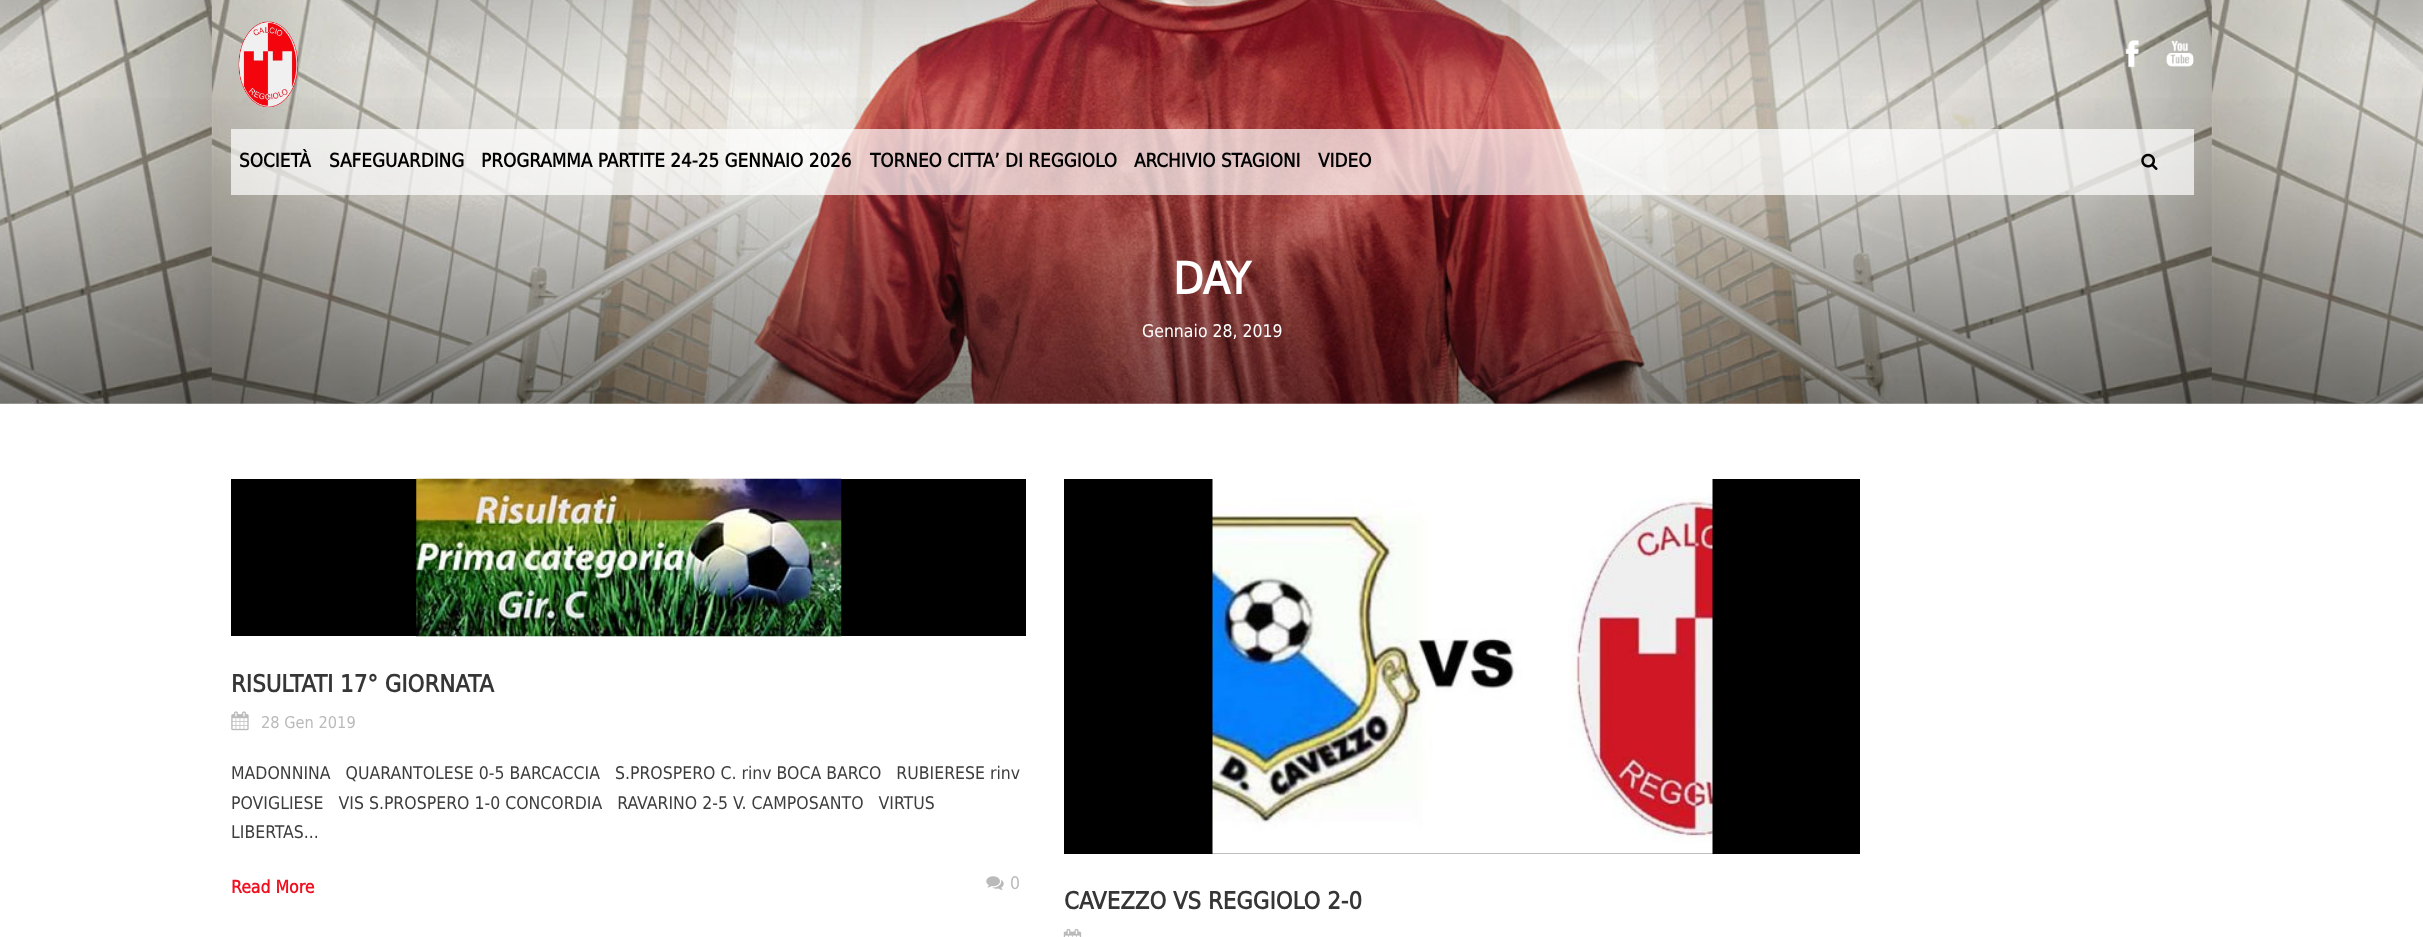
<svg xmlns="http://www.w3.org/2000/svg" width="2423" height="937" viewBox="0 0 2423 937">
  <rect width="100%" height="100%" fill="#fff"/>
  <image x="0" y="0" width="2423" height="404" href="img/1.png"/>
  <image x="2125" y="40" width="14" height="28" href="img/2.png"/>
  <image x="2166" y="40" width="28" height="27" href="img/3.png"/>
  <image x="238" y="21" width="60" height="86" href="img/4.png"/>
  <path d="M231 129h1963v66H231z" fill="#ffffffb3"/>
  <image x="2141" y="153" width="17" height="17" href="img/5.png"/>
  <path d="M231 479h795v157H231z" fill="#000"/>
  <image x="416" y="478" width="426" height="159" href="img/6.png"/>
  <image x="231" y="711" width="18" height="20" href="img/7.png"/>
  <image x="986" y="876" width="18" height="14" href="img/8.png"/>
  <path d="M1064 479h796v375H1064z" fill="#000"/>
  <image x="1212" y="479" width="501" height="375" href="img/9.png"/>
  <image x="1063" y="928" width="19" height="9" href="img/10.png"/>
  <g font-family="DejaVu Sans" font-size="18.75" font-weight="bold" fill="#000">
    <text x="239" y="167">SOCIETÀ</text>
    <text x="329" y="167">SAFEGUARDING</text>
    <text x="481" y="167">PROGRAMMA PARTITE 24-25 GENNAIO 2026</text>
    <text x="870" y="167">TORNEO CITTA’ DI REGGIOLO</text>
    <text x="1134" y="167">ARCHIVIO STAGIONI</text>
    <text x="1318" y="167">VIDEO</text>
  </g>
  <text x="1173" y="294" font-family="DejaVu Sans" font-size="44" font-weight="bold" fill="#fff">DAY</text>
  <text x="1142" y="337" font-family="DejaVu Sans" font-size="17.5" fill="#fff">Gennaio 28, 2019</text>
  <text x="231" y="692" font-family="DejaVu Sans" font-size="23.75" font-weight="bold" fill="#363636">RISULTATI 17° GIORNATA</text>
  <text x="261" y="728" font-family="DejaVu Sans" font-size="16.25" fill="#bababa">28 Gen 2019</text>
  <g font-family="DejaVu Sans" font-size="17.5" fill="#3d3d3d">
    <text x="231" y="779" xml:space="preserve">MADONNINA   QUARANTOLESE 0-5 BARCACCIA   S.PROSPERO C. rinv BOCA BARCO   RUBIERESE rinv</text>
    <text x="231" y="809" xml:space="preserve">POVIGLIESE   VIS S.PROSPERO 1-0 CONCORDIA   RAVARINO 2-5 V. CAMPOSANTO   VIRTUS</text>
    <text x="231" y="838">LIBERTAS...</text>
  </g>
  <text x="231" y="893" font-family="DejaVu Sans" font-size="17.5" font-weight="bold" fill="#f11020">Read More</text>
  <text x="1010" y="889" font-family="DejaVu Sans" font-size="17.5" fill="#bababa">0</text>
  <text x="1064" y="909" font-family="DejaVu Sans" font-size="23.75" font-weight="bold" fill="#363636">CAVEZZO VS REGGIOLO 2-0</text>
</svg>
